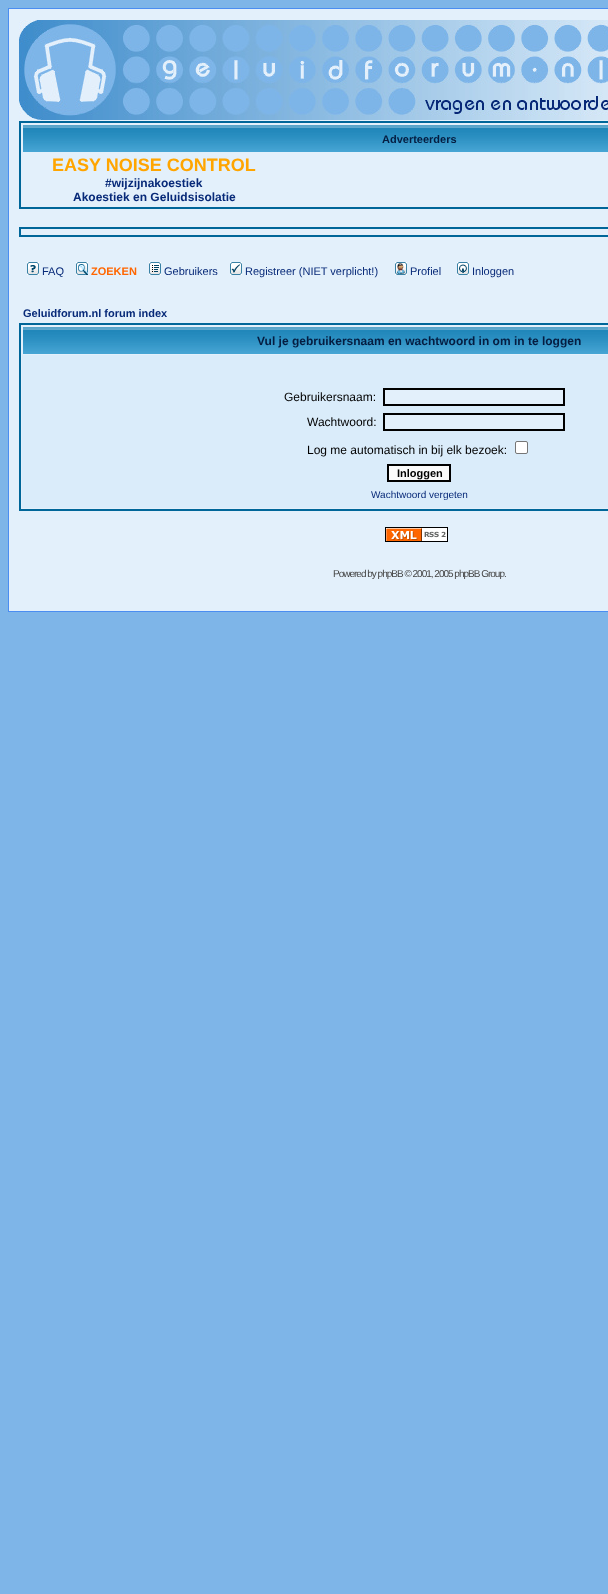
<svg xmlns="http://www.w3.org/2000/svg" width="608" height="1594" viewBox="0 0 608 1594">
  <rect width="100%" height="100%" fill="#7eb5e8"/>
  <path d="M9 9h599v602H9z" fill="#e3f0fb"/>
  <path d="M8 8h600v1H8z" fill="#4b8df1"/>
  <path d="M8 611h600v1H8z" fill="#4b8df1"/>
  <path d="M8 8h1v604H8z" fill="#4b8df1"/>
  <image x="19" y="20" width="589" height="100" href="img/1.png"/>
  <path d="M20 122h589v86H20z" fill="none" stroke="#069" stroke-width="2"/>
  <image x="23" y="125" width="585" height="27" href="img/2.png"/>
  <path d="M20 228h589v8H20z" fill="none" stroke="#069" stroke-width="2"/>
  <image x="27" y="262" width="12" height="13" href="img/3.png"/>
  <image x="76" y="262" width="12" height="13" href="img/4.png"/>
  <image x="149" y="262" width="12" height="13" href="img/5.png"/>
  <image x="230" y="262" width="12" height="13" href="img/6.png"/>
  <image x="395" y="262" width="12" height="13" href="img/7.png"/>
  <image x="457" y="262" width="12" height="13" href="img/8.png"/>
  <path d="M20 324h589v186H20z" fill="none" stroke="#069" stroke-width="2"/>
  <image x="23" y="327" width="585" height="27" href="img/2.png"/>
  <path d="M22 355h586v153H22z" fill="#daecfa"/>
  <path d="M384 389h180v16H384z" fill="#e3f0fb" stroke="#000" stroke-width="2"/>
  <path d="M384 414h180v16H384z" fill="#e3f0fb" stroke="#000" stroke-width="2"/>
  <rect x="515.5" y="441.5" width="12" height="12" rx="1.5" fill="#fff" stroke="#767676"/>
  <path d="M388 465h62v16H388z" fill="#fafafa" stroke="#000" stroke-width="2"/>
  <image x="385" y="527" width="63" height="15" href="img/9.png"/>
  <text x="382" y="143" font-family="Liberation Sans" font-size="11" font-weight="bold" fill="#051d41">Adverteerders</text>
  <text x="52" y="171" font-family="Liberation Sans" font-size="18" font-weight="bold" fill="#ffa500">EASY NOISE CONTROL</text>
  <g font-family="Liberation Sans" font-size="12" font-weight="bold" fill="#072978">
    <text x="105" y="187">#wijzijnakoestiek</text>
    <text x="73" y="201">Akoestiek en Geluidsisolatie</text>
  </g>
  <text x="42" y="275" font-family="Liberation Sans" font-size="11" fill="#072978">FAQ</text>
  <text x="91" y="275" font-family="Liberation Sans" font-size="11" font-weight="bold" fill="#f60">ZOEKEN</text>
  <g font-family="Liberation Sans" font-size="11" fill="#072978">
    <text x="164" y="275">Gebruikers</text>
    <text x="245" y="275">Registreer (NIET verplicht!)</text>
    <text x="410" y="275">Profiel</text>
    <text x="472" y="275">Inloggen</text>
  </g>
  <text x="23" y="317" font-family="Liberation Sans" font-size="11" font-weight="bold" fill="#072978">Geluidforum.nl forum index</text>
  <text x="257" y="345" font-family="Liberation Sans" font-size="12" font-weight="bold" fill="#051d41">Vul je gebruikersnaam en wachtwoord in om in te loggen</text>
  <g font-family="Liberation Sans" font-size="12" fill="#000">
    <text x="284" y="401">Gebruikersnaam:</text>
    <text x="307" y="426">Wachtwoord:</text>
    <text x="307" y="454">Log me automatisch in bij elk bezoek:</text>
  </g>
  <text x="397" y="477" font-family="Liberation Sans" font-size="11" font-weight="bold" fill="#000">Inloggen</text>
  <text x="371" y="498" font-family="Liberation Sans" font-size="10" fill="#072978">Wachtwoord vergeten</text>
  <text x="333" y="577" font-family="Liberation Sans" font-size="10" letter-spacing="-1" fill="#444">Powered by phpBB © 2001, 2005 phpBB Group.</text>
</svg>
